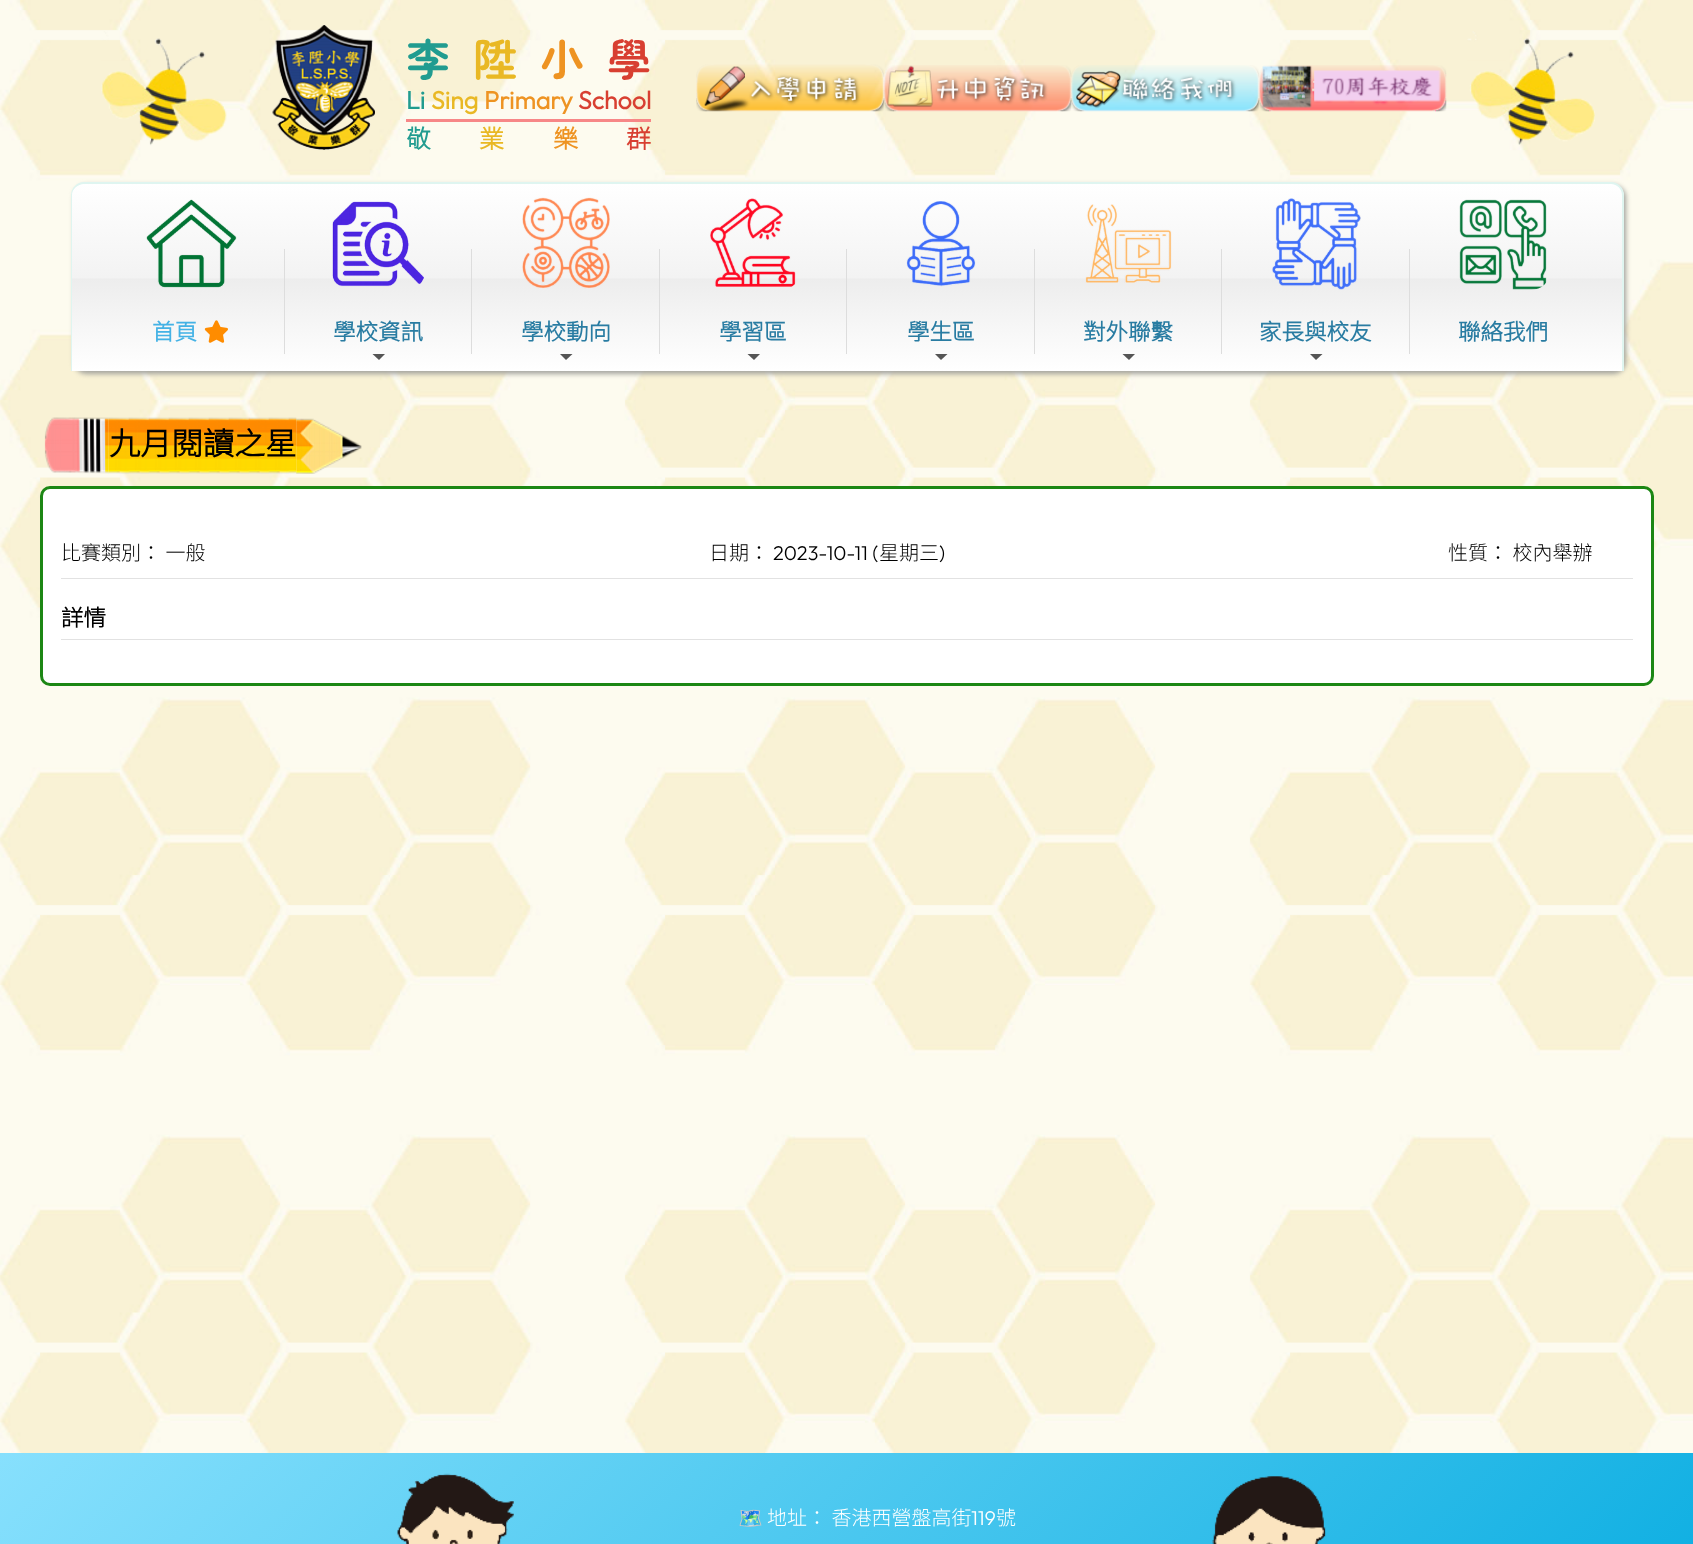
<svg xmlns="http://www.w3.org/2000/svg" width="1693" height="1544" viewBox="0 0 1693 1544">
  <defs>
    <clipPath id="clip1"><path d="M84 183H1611C1618 183 1624 189 1624 196V371H71V196C71 189 77 183 84 183Z"/></clipPath>
    <linearGradient id="g1" gradientUnits="userSpaceOnUse" x1="848" y1="184" x2="848" y2="371"><stop offset="0" stop-color="#fff"/><stop offset="0.5" stop-color="#f3f3f3"/><stop offset="0.51" stop-color="#ededed"/><stop offset="1" stop-color="#fff"/></linearGradient>
    <linearGradient id="g2" gradientUnits="userSpaceOnUse" x1="351" y1="1102" x2="1343" y2="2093"><stop offset="0" stop-color="#87e0fd"/><stop offset="0.4" stop-color="#53cbf1"/><stop offset="1" stop-color="#05abe0"/></linearGradient>
  </defs>
  <rect width="100%" height="100%" fill="#fff"/>
  <image x="0" y="0" width="1693" height="1453" href="img/1.png"/>
  <image x="101" y="31" width="126" height="115" href="img/2.png"/>
  <image x="272" y="25" width="103" height="125" href="img/3.png"/>
  <path d="M406 119h245v3H406z" fill="#f78787"/>
  <image x="696" y="64" width="188" height="48" href="img/4.png"/>
  <image x="883" y="65" width="189" height="47" href="img/5.png"/>
  <image x="1071" y="65" width="188" height="47" href="img/6.png"/>
  <image x="1258" y="65" width="189" height="47" href="img/7.png"/>
  <image x="1467" y="31" width="128" height="114" href="img/8.png"/>
  <rect x="74" y="185" width="1552" height="189" rx="13" fill="#a3a39e" filter="blur(2.5px)"/>
  <g clip-path="url(#clip1)">
    <path d="M71 184h1553v187H71z" fill="url(#g1)"/>
  </g>
  <path d="M84 182H1611C1618 182 1624 188 1624 195V371H71V195C71 188 77 182 84 182ZM84 184H1611C1617 184 1622 189 1622 195V371H72V195C72 189 78 184 84 184Z" fill="#dff5f0" fill-rule="evenodd"/>
  <image x="146" y="199" width="91" height="89" href="img/9.png"/>
  <image x="204" y="320" width="24" height="23" href="img/10.png"/>
  <path d="M284 249h1v105H284z" fill="#ddd"/>
  <image x="332" y="201" width="92" height="86" href="img/11.png"/>
  <path d="M372.5 354H385L379 360Z" fill="#555"/>
  <path d="M471 249h1v105H471z" fill="#ddd"/>
  <image x="522" y="197" width="88" height="92" href="img/12.png"/>
  <path d="M560 354H572.5L566 360Z" fill="#555"/>
  <path d="M659 249h1v105H659z" fill="#ddd"/>
  <image x="710" y="198" width="86" height="89" href="img/13.png"/>
  <path d="M747.5 354H760L754 360Z" fill="#555"/>
  <path d="M846 249h1v105H846z" fill="#ddd"/>
  <image x="906" y="201" width="70" height="86" href="img/14.png"/>
  <path d="M935 354H947.5L941 360Z" fill="#555"/>
  <path d="M1034 249h1v105H1034z" fill="#ddd"/>
  <image x="1085" y="204" width="87" height="79" href="img/15.png"/>
  <path d="M1122.5 354H1135L1129 360Z" fill="#555"/>
  <path d="M1221 249h1v105H1221z" fill="#ddd"/>
  <image x="1272" y="198" width="89" height="92" href="img/16.png"/>
  <path d="M1310 354H1322.5L1316 360Z" fill="#555"/>
  <path d="M1409 249h1v105H1409z" fill="#ddd"/>
  <image x="1459" y="199" width="88" height="91" href="img/17.png"/>
  <image x="44" y="417" width="65" height="57" href="img/18.png"/>
  <image x="108" y="417" width="189" height="57" href="img/19.png"/>
  <image x="296" y="418" width="66" height="56" href="img/20.png"/>
  <rect x="41.5" y="487.5" width="1611" height="197" rx="8.5" fill="#fff" stroke="#1c8714" stroke-width="3"/>
  <path d="M61 578h1572v1H61z" fill="#e2e2e2"/>
  <path d="M61 639h1572v1H61z" fill="#e2e2e2"/>
  <path d="M0 1453h1693v91H0z" fill="url(#g2)"/>
  <image x="397" y="1473" width="117" height="71" href="img/21.png"/>
  <image x="1212" y="1476" width="114" height="68" href="img/22.png"/>
  <text x="406" y="76" font-family="Zen Maru Gothic" font-size="44" font-weight="bold" fill="#219c90">李</text>
  <text x="473" y="76" font-family="Zen Maru Gothic" font-size="44" font-weight="bold" fill="#e9b824">陞</text>
  <text x="540" y="76" font-family="Zen Maru Gothic" font-size="44" font-weight="bold" fill="#ee9322">小</text>
  <text x="607" y="76" font-family="Zen Maru Gothic" font-size="44" font-weight="bold" fill="#d83f31">學</text>
  <text x="406" y="109" font-family="Outfit" font-size="25" font-weight="bold" fill="#219c90">Li</text>
  <text x="431" y="109" font-family="Outfit" font-size="25" font-weight="bold" fill="#e9b824">Sing</text>
  <text x="484" y="109" font-family="Outfit" font-size="25" font-weight="bold" fill="#ee9322">Primary</text>
  <text x="578" y="109" font-family="Outfit" font-size="25" font-weight="bold" fill="#d83f31">School</text>
  <text x="406" y="148" font-family="Noto Sans HK" font-size="25" font-weight="bold" fill="#219c90">敬</text>
  <text x="479" y="148" font-family="Noto Sans HK" font-size="25" font-weight="bold" fill="#e9b824">業</text>
  <text x="553" y="148" font-family="Noto Sans HK" font-size="25" font-weight="bold" fill="#ee9322">樂</text>
  <text x="626" y="148" font-family="Noto Sans HK" font-size="25" font-weight="bold" fill="#d83f31">群</text>
  <text x="152" y="340" font-family="Noto Sans HK" font-size="22.5" font-weight="bold" fill="#44b2e5">首頁</text>
  <g font-family="Noto Sans HK" font-size="22.5" font-weight="bold" fill="#297ca2">
    <text x="333" y="340">學校資訊</text>
    <text x="521" y="340">學校動向</text>
    <text x="719" y="340">學習區</text>
    <text x="907" y="340">學生區</text>
    <text x="1083" y="340">對外聯繫</text>
    <text x="1259" y="340">家長與校友</text>
    <text x="1458" y="340">聯絡我們</text>
  </g>
  <text x="109" y="455" font-family="Noto Sans HK" font-size="31.25" font-weight="bold" fill="#000">九月閱讀之星</text>
  <g font-family="Noto Sans HK" font-size="20" font-weight="100" fill="#000">
    <text x="61" y="560">比賽類別： 一般</text>
    <text x="709" y="560">日期：</text>
  </g>
  <text x="773" y="560" font-family="Outfit" font-size="20" font-weight="100" fill="#000">2023-10-11 (</text>
  <text x="879" y="560" font-family="Noto Sans HK" font-size="20" font-weight="100" fill="#000">星期三</text>
  <text x="939" y="560" font-family="Outfit" font-size="20" font-weight="100" fill="#000">)</text>
  <text x="1448" y="560" font-family="Noto Sans HK" font-size="20" font-weight="100" fill="#000">性質： 校內舉辦</text>
  <text x="61" y="626" font-family="Noto Sans HK" font-size="22.5" font-weight="bold" fill="#000">詳情</text>
  <text x="738" y="1525" font-family="Noto Color Emoji" font-size="20" fill="#fff">🗺️</text>
  <text x="767" y="1525" font-family="Noto Sans HK" font-size="20" font-weight="100" fill="#fff">地址： 香港西營盤高街</text>
  <text x="971" y="1525" font-family="Outfit" font-size="20" font-weight="100" fill="#fff">119</text>
  <text x="996" y="1525" font-family="Noto Sans HK" font-size="20" font-weight="100" fill="#fff">號</text>
</svg>
